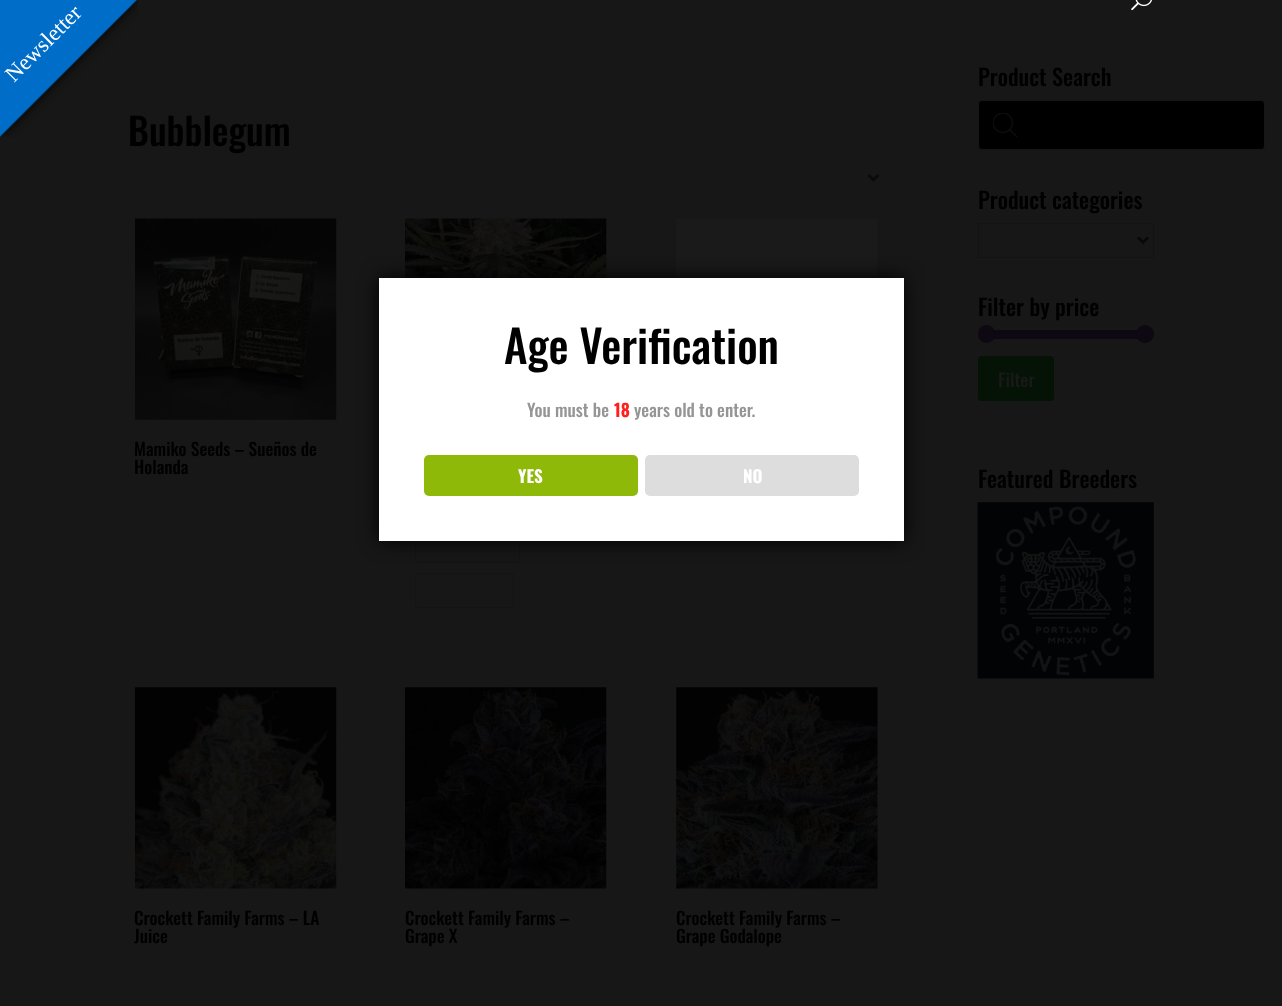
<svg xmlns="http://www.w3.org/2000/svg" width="1282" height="1006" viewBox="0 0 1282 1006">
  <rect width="100%" height="100%" fill="#171717"/>
  <image x="1131" y="0" width="21" height="11" href="img/2.png"/>
  <path d="M868.5 175L873.5 180L878.5 175" fill="none" stroke="#0a0a0a" stroke-width="2.5"/>
  <image x="405" y="218" width="202" height="60" href="img/3.png"/>
  <rect x="415.5" y="529.5" width="104" height="33" rx="3.5" fill="none" stroke="#0000001f"/>
  <rect x="415.5" y="573.5" width="98" height="34" rx="3.5" fill="none" stroke="#0000001f"/>
  <image x="676" y="218" width="202" height="60" href="img/4.png"/>
  <image x="135" y="218" width="202" height="202" href="img/5.png"/>
  <image x="135" y="687" width="202" height="202" href="img/6.png"/>
  <image x="405" y="687" width="202" height="202" href="img/7.png"/>
  <image x="676" y="687" width="202" height="202" href="img/8.png"/>
  <rect x="978.5" y="100.5" width="286" height="49" rx="3.5" fill="#000" stroke="#161616"/>
  <image x="993" y="113" width="25" height="25" href="img/9.png"/>
  <path d="M978.5 223.5h175v34H978.5z" fill="none" stroke="#131313"/>
  <path d="M1138 237.5L1143 242.5L1148 237.5" fill="none" stroke="#080808" stroke-width="2.5"/>
  <path d="M993 330h145v9H993z" fill="#0d0812"/>
  <rect x="978" y="325" width="17" height="18" rx="8.5" fill="#0d0812"/>
  <circle cx="1145" cy="334" r="9" fill="#0d0812"/>
  <rect x="979.5" y="357.5" width="73" height="42" rx="2.5" fill="#051206" stroke="#051206" stroke-width="3"/>
  <image x="977" y="502" width="177" height="177" href="img/10.png"/>
  <path d="M379 278h525v263H379z" fill="#000" filter="blur(9.5px)"/>
  <path d="M379 278h525v263H379z" fill="#fff"/>
  <rect x="424" y="455" width="214" height="41" rx="5" fill="#8eb908"/>
  <rect x="645" y="455" width="214" height="41" rx="5" fill="#ddd"/>
  <text x="128" y="146" font-family="Oswald" font-size="37.5" font-weight="500" fill="#000">Bubblegum</text>
  <image x="0" y="0" width="138" height="137" href="img/1.png"/>
  <text x="14" y="83" transform="rotate(-45 14 83)" font-family="Liberation Serif" font-size="22.5" fill="#fff">Newsletter</text>
  <g font-family="Oswald" font-size="17.5" font-weight="500" fill="#000">
    <text x="134" y="456">Mamiko Seeds – Sueños de</text>
    <text x="134" y="474">Holanda</text>
    <text x="134" y="925">Crockett Family Farms – LA</text>
    <text x="134" y="943">Juice</text>
    <text x="405" y="925">Crockett Family Farms –</text>
    <text x="405" y="943">Grape X</text>
    <text x="676" y="925">Crockett Family Farms –</text>
    <text x="676" y="943">Grape Godalope</text>
  </g>
  <g font-family="Oswald" font-size="22.5" font-weight="500" fill="#000">
    <text x="978" y="86">Product Search</text>
    <text x="978" y="209">Product categories</text>
    <text x="978" y="316">Filter by price</text>
  </g>
  <text x="998" y="387" font-family="Oswald" font-size="18" font-weight="500" fill="#191919">Filter</text>
  <text x="978" y="488" font-family="Oswald" font-size="22.5" font-weight="500" fill="#000">Featured Breeders</text>
  <text x="504" y="364" font-family="Oswald" font-size="45" font-weight="500" fill="#000">Age Verification</text>
  <text x="527" y="417" font-family="Oswald" font-size="17.5" font-weight="500" fill="#959595">You must be</text>
  <text x="614" y="417" font-family="Oswald" font-size="17.5" font-weight="bold" fill="#ff1f1f">18</text>
  <text x="634" y="417" font-family="Oswald" font-size="17.5" font-weight="500" fill="#959595">years old to enter.</text>
  <g font-family="Oswald" font-size="17" font-weight="bold" fill="#fff">
    <text x="518" y="483">YES</text>
    <text x="743" y="483">NO</text>
  </g>
</svg>
